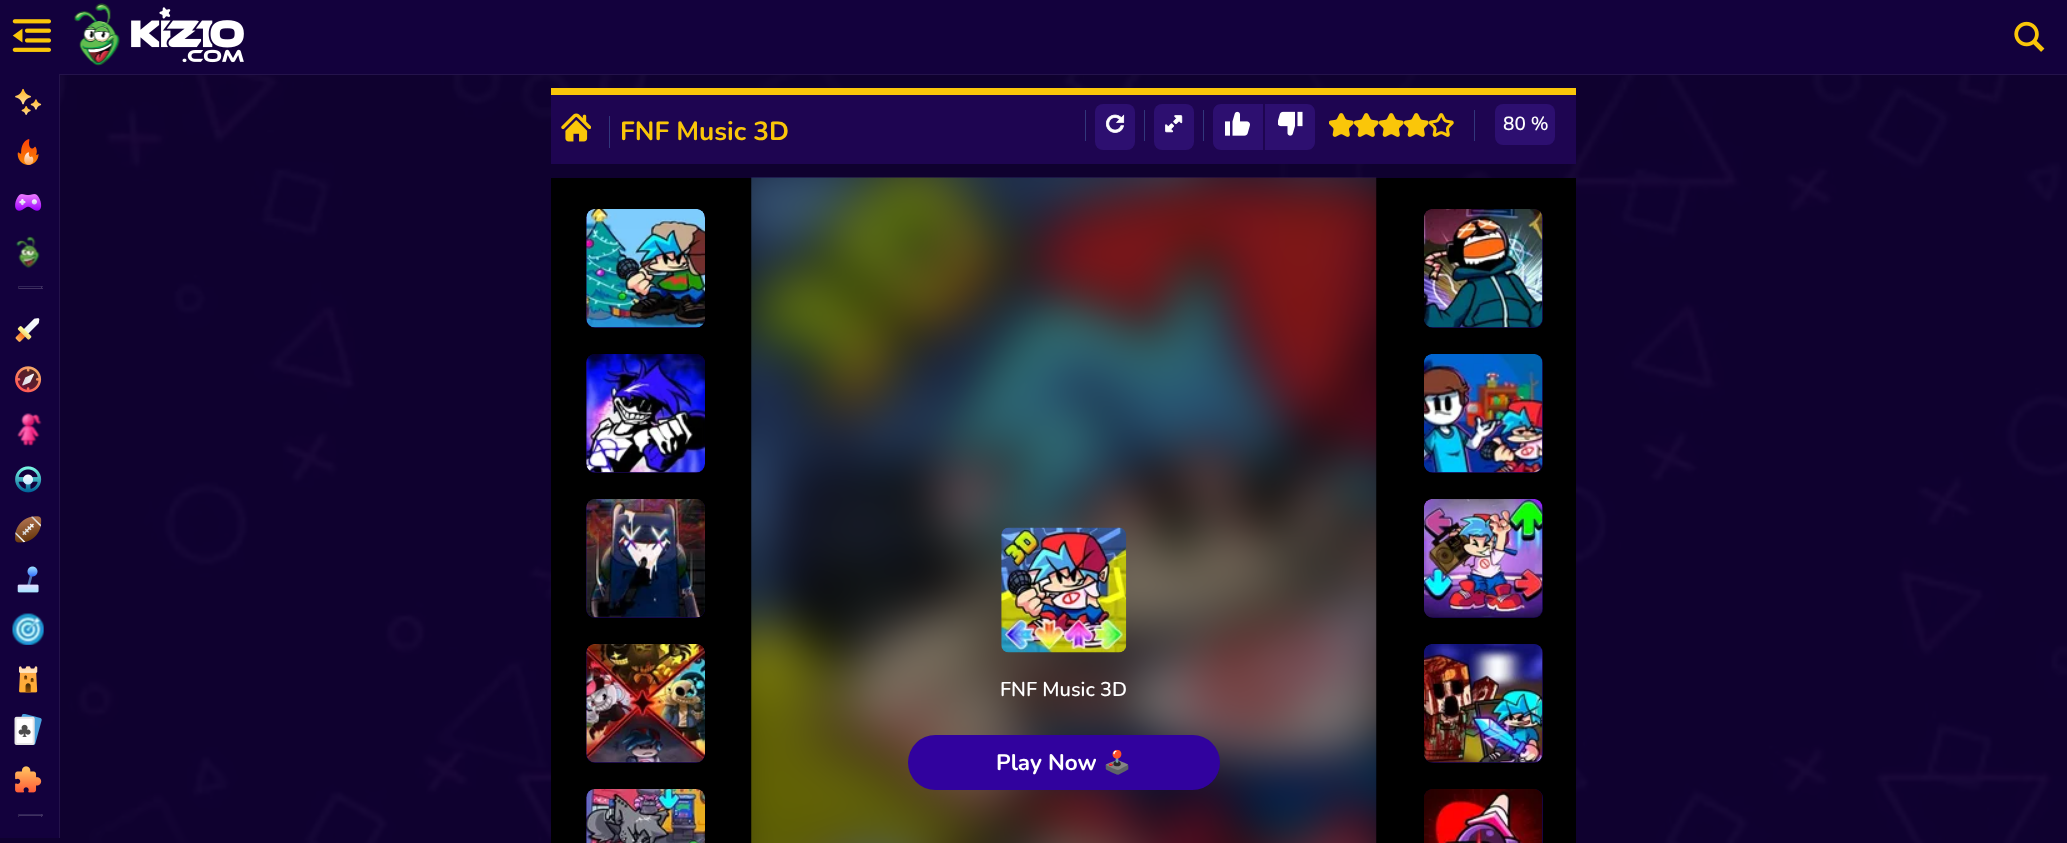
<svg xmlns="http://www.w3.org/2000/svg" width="2067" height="843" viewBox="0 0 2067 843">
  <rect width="100%" height="100%" fill="#100230"/>
  <path d="M0 0h2067v74H0z" fill="#13013d"/>
  <path d="M60 74h2007v1H60z" fill="#24134b"/>
  <image x="12" y="19" width="39" height="33" href="img/1.png"/>
  <image x="74" y="3" width="46" height="63" href="img/2.png"/>
  <image x="131" y="7" width="113" height="56" href="img/3.png"/>
  <image x="2014" y="21" width="31" height="31" href="img/4.png"/>
  <image x="0" y="75" width="2067" height="768" href="img/19.png"/>
  <path d="M0 74h59v764H0z" fill="#13013d"/>
  <path d="M59 74h1v764H59z" fill="#24134b"/>
  <image x="15" y="88" width="27" height="27" href="img/5.png"/>
  <image x="17" y="139" width="22" height="26" href="img/6.png"/>
  <image x="15" y="194" width="27" height="17" href="img/7.png"/>
  <image x="15" y="236" width="25" height="33" href="img/8.png"/>
  <path d="M18 286h25v1H18z" fill="#302458"/>
  <path d="M41 286h1v3H41z" fill="#3f3060"/>
  <path d="M18 288h25v1H18z" fill="#3f3060"/>
  <path d="M18 286h1v3H18z" fill="#2f2151"/>
  <image x="15" y="318" width="25" height="24" href="img/9.png"/>
  <image x="15" y="366" width="27" height="27" href="img/10.png"/>
  <image x="17" y="413" width="25" height="33" href="img/11.png"/>
  <image x="15" y="466" width="27" height="27" href="img/12.png"/>
  <image x="15" y="516" width="27" height="27" href="img/13.png"/>
  <image x="17" y="566" width="22" height="27" href="img/14.png"/>
  <image x="12" y="613" width="32" height="32" href="img/15.png"/>
  <image x="19" y="666" width="19" height="27" href="img/16.png"/>
  <image x="14" y="714" width="28" height="31" href="img/17.png"/>
  <image x="15" y="766" width="27" height="27" href="img/18.png"/>
  <path d="M18 814h25v1H18z" fill="#302458"/>
  <path d="M41 814h1v3H41z" fill="#3f3060"/>
  <path d="M18 815h25v1H18z" fill="#3f3060"/>
  <path d="M18 814h1v3H18z" fill="#2f2151"/>
  <path d="M551 95h1025v69H551z" fill="#1e0551"/>
  <path d="M551 88h1025v7H551z" fill="#fac609"/>
  <image x="561" y="113" width="30" height="29" href="img/20.png"/>
  <path d="M609 116h1v32H609z" fill="#32377c"/>
  <path d="M1085 110h1v31H1085z" fill="#32377c"/>
  <rect x="1095" y="104" width="40" height="46" rx="8" fill="#2d0f70"/>
  <image x="1105" y="114" width="20" height="19" href="img/21.png"/>
  <path d="M1144 110h1v31H1144z" fill="#32377c"/>
  <rect x="1154" y="104" width="40" height="46" rx="8" fill="#2d0f70"/>
  <image x="1165" y="115" width="18" height="18" href="img/22.png"/>
  <path d="M1203 110h1v31H1203z" fill="#32377c"/>
  <path d="M1221 104H1263V150H1221C1216.5 150 1213 146.5 1213 142V112C1213 107.5 1216.5 104 1221 104Z" fill="#2d0f70"/>
  <image x="1225" y="111" width="25" height="25" href="img/23.png"/>
  <path d="M1265 104H1307C1311.5 104 1315 107.5 1315 112V142C1315 146.5 1311.5 150 1307 150H1265Z" fill="#2d0f70"/>
  <image x="1278" y="111" width="25" height="25" href="img/24.png"/>
  <image x="1329" y="113" width="25" height="24" href="img/25.png"/>
  <image x="1354" y="113" width="25" height="24" href="img/25.png"/>
  <image x="1379" y="113" width="25" height="24" href="img/25.png"/>
  <image x="1404" y="113" width="25" height="24" href="img/25.png"/>
  <image x="1429" y="113" width="25" height="24" href="img/26.png"/>
  <path d="M1474 110h1v31H1474z" fill="#32377c"/>
  <rect x="1495" y="104" width="60" height="41" rx="8" fill="#2d0f70"/>
  <path d="M551 178h1025v665H551z" fill="#000"/>
  <rect x="586" y="209" width="119" height="119" rx="9" fill="#17064b"/>
  <image x="586" y="209" width="119" height="119" href="img/27.png"/>
  <rect x="586" y="354" width="119" height="119" rx="9" fill="#17064b"/>
  <image x="586" y="354" width="119" height="119" href="img/28.png"/>
  <rect x="586" y="499" width="119" height="119" rx="9" fill="#17064b"/>
  <image x="586" y="499" width="119" height="119" href="img/29.png"/>
  <rect x="586" y="644" width="119" height="119" rx="9" fill="#17064b"/>
  <image x="586" y="644" width="119" height="119" href="img/30.png"/>
  <rect x="586" y="789" width="119" height="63" rx="9" fill="#17064b"/>
  <image x="586" y="789" width="119" height="54" href="img/31.png"/>
  <image x="751" y="177" width="626" height="666" href="img/32.png"/>
  <image x="1001" y="527" width="126" height="126" href="img/33.png"/>
  <rect x="908" y="735" width="312" height="55" rx="27.5" fill="#31029e"/>
  <rect x="1424" y="209" width="119" height="119" rx="9" fill="#17064b"/>
  <image x="1424" y="209" width="119" height="119" href="img/34.png"/>
  <rect x="1424" y="354" width="119" height="119" rx="9" fill="#17064b"/>
  <image x="1424" y="354" width="119" height="119" href="img/35.png"/>
  <rect x="1424" y="499" width="119" height="119" rx="9" fill="#17064b"/>
  <image x="1424" y="499" width="119" height="119" href="img/36.png"/>
  <rect x="1424" y="644" width="119" height="119" rx="9" fill="#17064b"/>
  <image x="1424" y="644" width="119" height="119" href="img/37.png"/>
  <rect x="1424" y="789" width="119" height="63" rx="9" fill="#17064b"/>
  <image x="1424" y="789" width="119" height="54" href="img/38.png"/>
  <text x="620" y="140" font-family="Nunito" font-size="26.25" font-weight="bold" fill="#fac609">FNF Music 3D</text>
  <text x="1503" y="130" font-family="Nunito" font-size="19" font-weight="600" fill="#fff">80 %</text>
  <text x="1000" y="696" font-family="Nunito" font-size="20" font-weight="600" fill="#fff">FNF Music 3D</text>
  <text x="996" y="770" font-family="Nunito" font-size="22.5" font-weight="bold" fill="#fff">Play Now</text>
  <text x="1103" y="770" font-family="Noto Color Emoji" font-size="22.5" font-weight="bold" fill="#fff">🕹️</text>
</svg>
